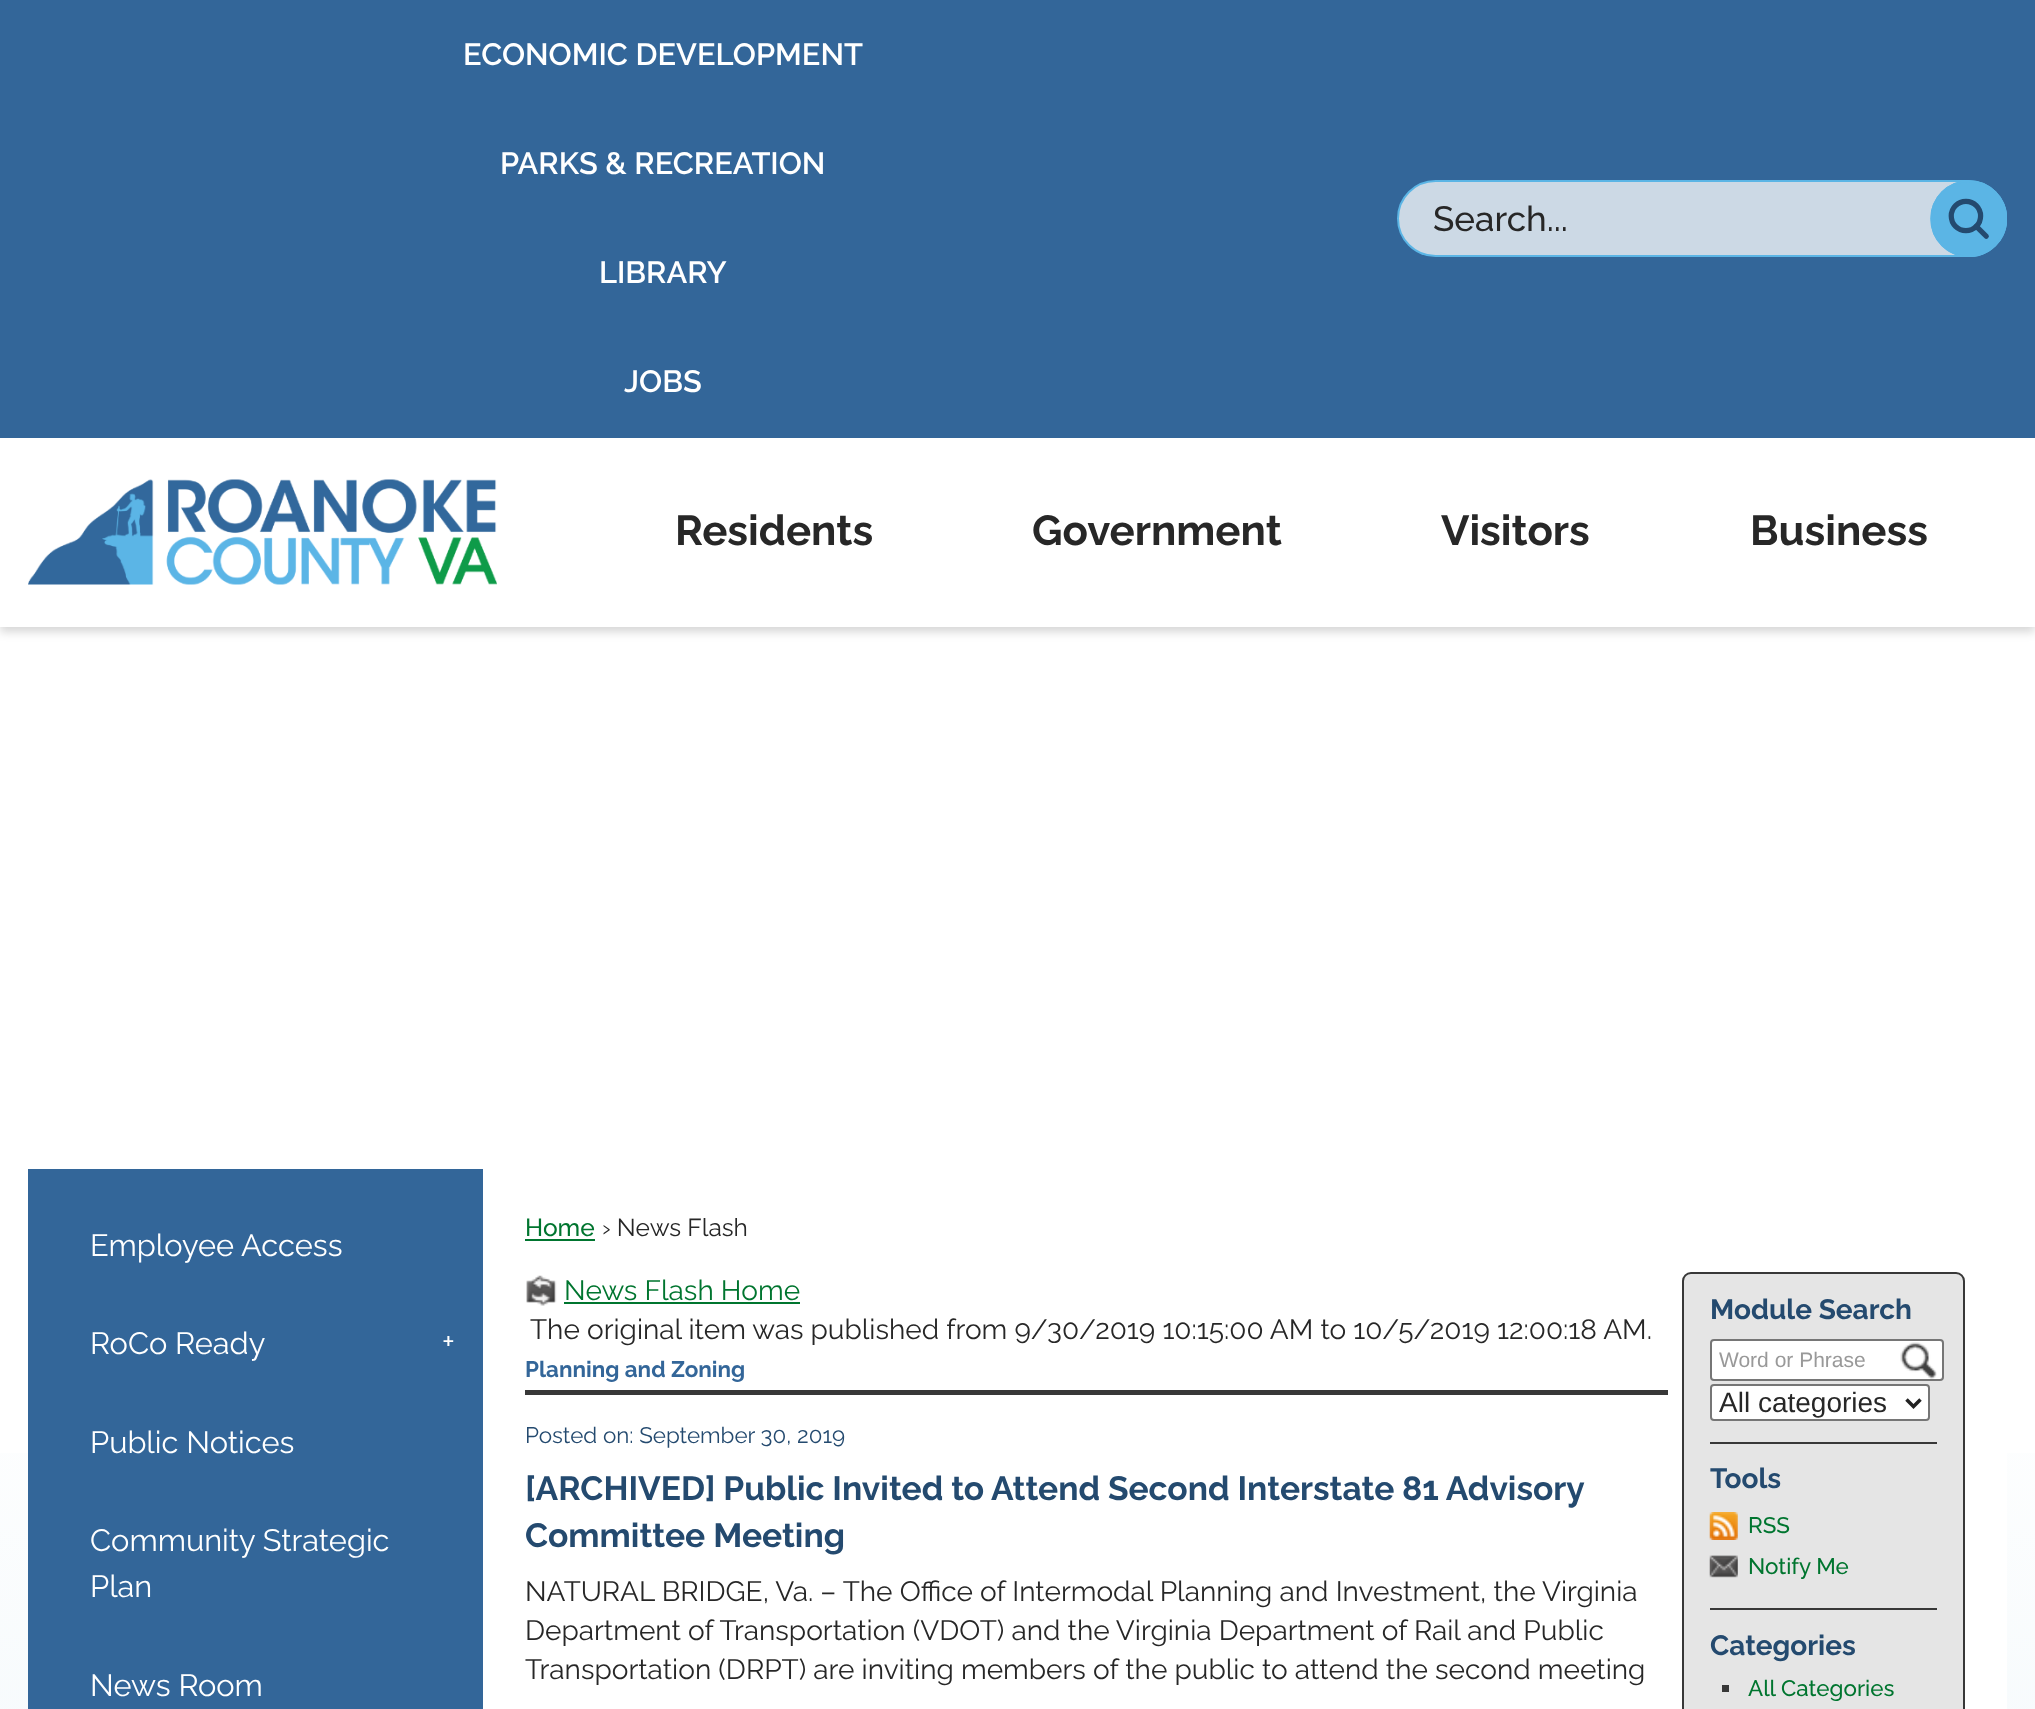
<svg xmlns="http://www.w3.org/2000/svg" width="2035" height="1709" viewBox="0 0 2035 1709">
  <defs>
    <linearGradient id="g1" gradientUnits="userSpaceOnUse" x1="1018" y1="1326" x2="1018" y2="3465"><stop offset="0" stop-color="#fff"/><stop offset="1" stop-color="#d5e9f2"/></linearGradient>
  </defs>
  <rect width="100%" height="100%" fill="#fff"/>
  <path d="M0 5h2035v627H0z" fill="#00000029" filter="blur(5px)"/>
  <path d="M0 438h2035v189H0z" fill="#fff"/>
  <path d="M0 0h2035v438H0z" fill="#369"/>
  <rect x="1398" y="181" width="608" height="75" rx="37.5" fill="#ccd9e5" stroke="#5bb5e5" stroke-width="2"/>
  <image x="1930" y="180" width="77" height="77" href="img/1.png"/>
  <image x="28" y="479" width="469" height="106" href="img/2.png"/>
  <path d="M0 1453h2035v256H0z" fill="url(#g1)"/>
  <path d="M483 1453h1524v256H483z" fill="#fff"/>
  <path d="M28 1169h455v540H28z" fill="#369"/>
  <path d="M525 1239h70v2H525z" fill="#00752f"/>
  <image x="526" y="1275" width="31" height="31" href="img/3.png"/>
  <path d="M564 1302h236v2H564z" fill="#00752f"/>
  <path d="M525 1390h1143v5H525z" fill="#383838"/>
  <rect x="1683" y="1273" width="281" height="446" rx="8" fill="#e5e5e5" stroke="#383838" stroke-width="2"/>
  <rect x="1711" y="1340" width="232" height="40" rx="3" fill="#fff" stroke="#767676" stroke-width="2"/>
  <image x="1900" y="1342" width="37" height="37" href="img/4.png"/>
  <rect x="1711" y="1385" width="218" height="35" rx="3" fill="#fff" stroke="#767676" stroke-width="2"/>
  <path d="M1906.5 1399.5L1913.5 1406.5L1920.5 1399.5" fill="none" stroke="#222" stroke-width="3.5"/>
  <path d="M1710 1442h227v2H1710z" fill="#383838"/>
  <image x="1709" y="1512" width="29" height="28" href="img/5.png"/>
  <image x="1709" y="1555" width="29" height="23" href="img/6.png"/>
  <path d="M1710 1608h227v2H1710z" fill="#383838"/>
  <path d="M1722 1685h7v7H1722z" fill="#383838"/>
  <g font-family="Raleway" font-size="30.75" font-weight="600" fill="#fff">
    <text x="463" y="65">ECONOMIC DEVELOPMENT</text>
    <text x="500" y="174">PARKS &amp; RECREATION</text>
    <text x="599" y="283">LIBRARY</text>
    <text x="624" y="392">JOBS</text>
  </g>
  <text x="1433" y="231" font-family="Raleway" font-size="35" font-weight="500" fill="#272727">Search...</text>
  <g font-family="Raleway" font-size="42" font-weight="bold" fill="#272727">
    <text x="675" y="545">Residents</text>
    <text x="1032" y="545">Government</text>
    <text x="1441" y="545">Visitors</text>
    <text x="1750" y="545">Business</text>
  </g>
  <g font-family="Raleway" font-size="30.75" fill="#fff">
    <text x="90" y="1256">Employee Access</text>
    <text x="90" y="1354">RoCo Ready</text>
    <text x="442" y="1352">+</text>
    <text x="90" y="1453">Public Notices</text>
    <text x="90" y="1551">Community Strategic</text>
    <text x="90" y="1597">Plan</text>
    <text x="90" y="1696">News Room</text>
  </g>
  <text x="525" y="1236" font-family="Raleway" font-size="24.5" font-weight="500" fill="#00752f">Home</text>
  <text x="602" y="1236" font-family="Raleway" font-size="24.5" fill="#272727">› News Flash</text>
  <text x="564" y="1300" font-family="Raleway" font-size="28" fill="#00752f">News Flash Home</text>
  <text x="530" y="1339" font-family="Raleway" font-size="28" fill="#272727">The original item was published from 9/30/2019 10:15:00 AM to 10/5/2019 12:00:18 AM.</text>
  <text x="525" y="1377" font-family="Raleway" font-size="22.4" font-weight="bold" fill="#369">Planning and Zoning</text>
  <text x="525" y="1443" font-family="Raleway" font-size="22.4" fill="#244a6f">Posted on: September 30, 2019</text>
  <g font-family="Raleway" font-size="33.6" font-weight="bold" fill="#244a6f">
    <text x="525" y="1500" word-spacing="-0.25">[ARCHIVED] Public Invited to Attend Second Interstate 81 Advisory</text>
    <text x="525" y="1547">Committee Meeting</text>
  </g>
  <g font-family="Raleway" font-size="28" fill="#272727">
    <text x="525" y="1601">NATURAL BRIDGE, Va. – The Office of Intermodal Planning and Investment, the Virginia</text>
    <text x="525" y="1640">Department of Transportation (VDOT) and the Virginia Department of Rail and Public</text>
    <text x="525" y="1679">Transportation (DRPT) are inviting members of the public to attend the second meeting</text>
  </g>
  <text x="1710" y="1319" font-family="Raleway" font-size="28" font-weight="bold" fill="#244a6f">Module Search</text>
  <text x="1719" y="1367" font-family="Liberation Sans" font-size="21" fill="#999">Word or Phrase</text>
  <text x="1719" y="1412" font-family="Liberation Sans" font-size="28" fill="#272727">All categories</text>
  <text x="1710" y="1488" font-family="Raleway" font-size="28" font-weight="bold" fill="#244a6f">Tools</text>
  <g font-family="Raleway" font-size="22.4" font-weight="500" fill="#00752f">
    <text x="1748" y="1533">RSS</text>
    <text x="1748" y="1574">Notify Me</text>
  </g>
  <text x="1710" y="1655" font-family="Raleway" font-size="28" font-weight="bold" fill="#244a6f">Categories</text>
  <text x="1748" y="1696" font-family="Raleway" font-size="22.4" font-weight="500" fill="#00752f">All Categories</text>
</svg>
